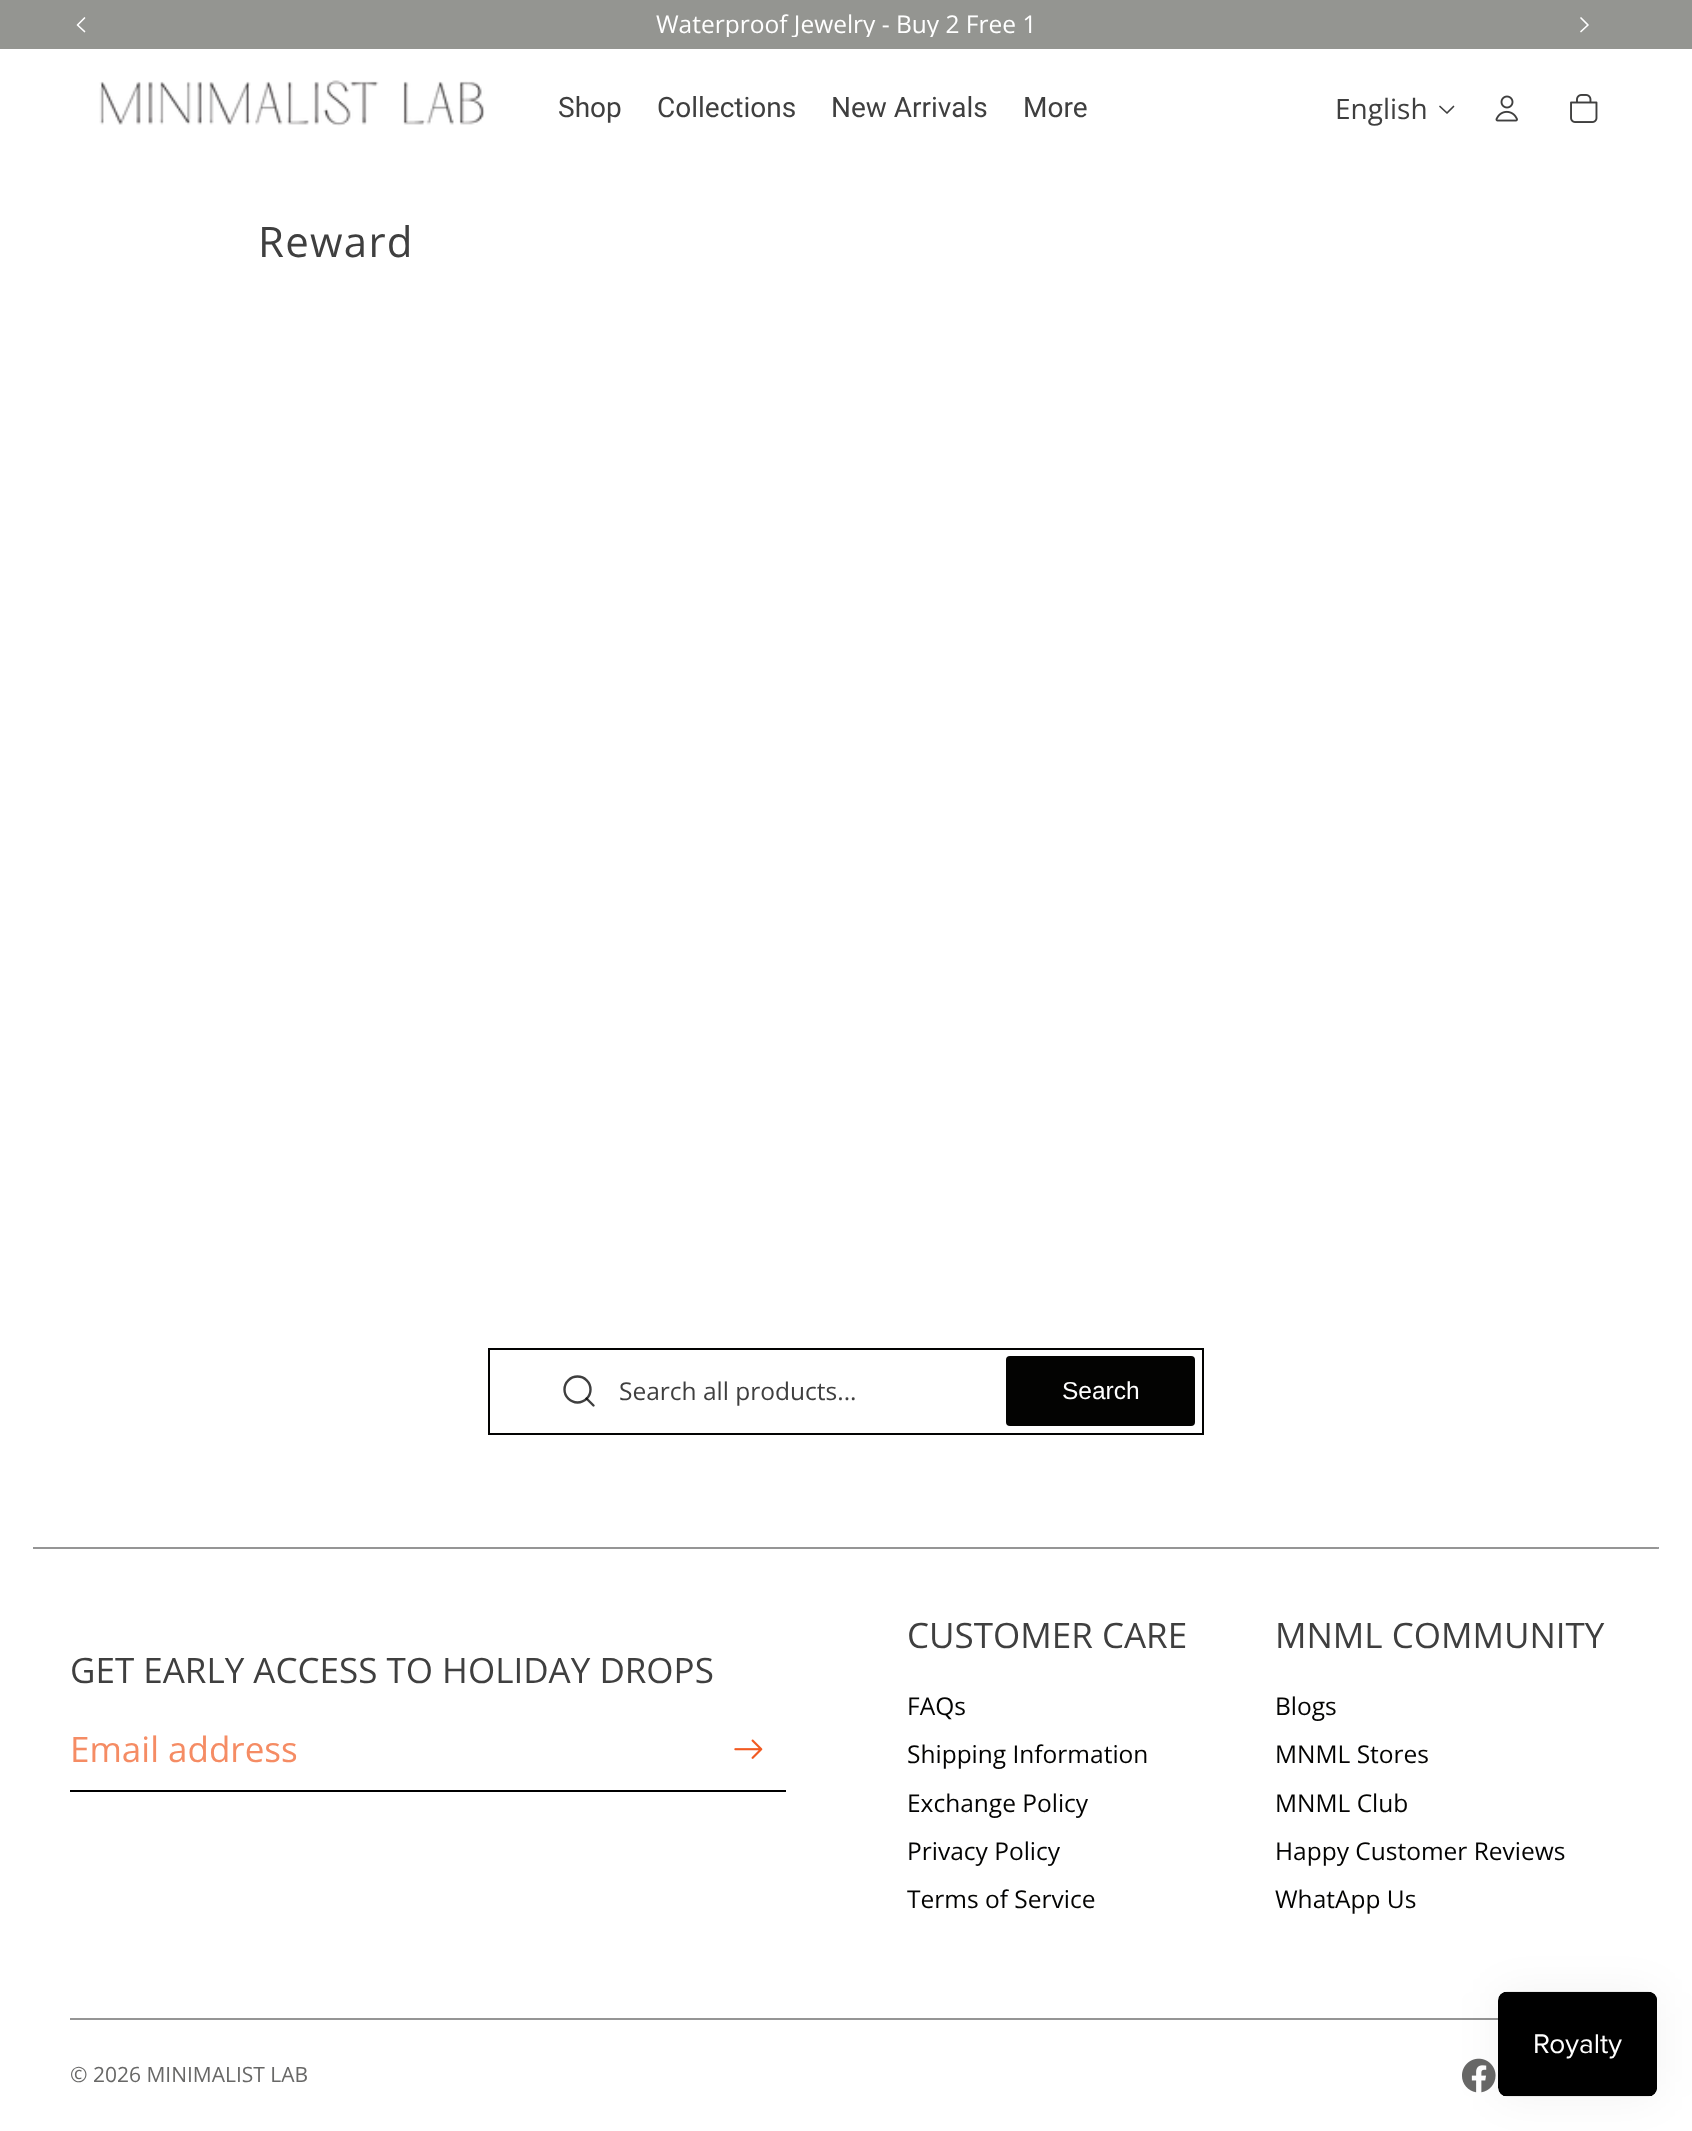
<svg xmlns="http://www.w3.org/2000/svg" width="1692" height="2131" viewBox="0 0 1692 2131">
  <defs>
    <clipPath id="clip1"><path d="M252 12h1190v25H252z"/></clipPath>
  </defs>
  <rect width="100%" height="100%" fill="#fff"/>
  <path d="M0 0h1692v49H0z" fill="#949591"/>
  <path d="M84.5 18L77.5 25L84.5 31.5" fill="none" stroke="#fff" stroke-width="1.7" stroke-linecap="round" stroke-linejoin="round"/>
  <path d="M1581 18L1588 25L1581 31.5" fill="none" stroke="#fff" stroke-width="1.7" stroke-linecap="round" stroke-linejoin="round"/>
  <image x="99" y="80" width="386" height="46" href="img/1.png"/>
  <path d="M1453.5 106.5L1447 113L1440 106.5" fill="none" stroke="#3f3f3f" stroke-width="1.7" stroke-linecap="round" stroke-linejoin="round"/>
  <image x="1495" y="95" width="23" height="27" href="img/2.png"/>
  <image x="1570" y="94" width="28" height="29" href="img/3.png"/>
  <path d="M489 1349h714v85H489z" fill="none" stroke="#030302" stroke-width="2"/>
  <circle cx="577.5" cy="1389.5" r="13" fill="none" stroke="#3f3f3f" stroke-width="2.4"/>
  <path d="M593.5 1405.5L586.5 1398.5" fill="none" stroke="#030302c2" stroke-width="2.4" stroke-linecap="round" stroke-linejoin="round"/>
  <rect x="1006" y="1356" width="189" height="70" rx="4" fill="#030302"/>
  <path d="M1659 1547V1549L1657 1547Z" fill="#959595"/>
  <path d="M1659 1549H33V1547H1657Z" fill="#0303026b"/>
  <path d="M70 1790V1792H786V1712V1790Z" fill="#000"/>
  <image x="734" y="1739" width="29" height="20" href="img/4.png"/>
  <path d="M70 2018h1428v2H70z" fill="#959595"/>
  <image x="1462" y="2058" width="34" height="35" href="img/5.png"/>
  <rect x="1498" y="1992" width="159" height="105" rx="9" fill="#0000000d" filter="blur(22px)"/>
  <image x="1498" y="1991" width="159" height="106" href="img/6.png"/>
  <g clip-path="url(#clip1)">
    <text x="656" y="33" font-family="Open Sans" font-size="24.5" fill="#fff">Waterproof Jewelry - Buy 2 Free 1</text>
  </g>
  <g font-family="Roboto" font-size="28" fill="#3f3f3f">
    <text x="558" y="117">Shop</text>
    <text x="657" y="117">Collections</text>
    <text x="831" y="117">New Arrivals</text>
    <text x="1023" y="117">More</text>
  </g>
  <text x="1335" y="119" font-family="Open Sans" font-size="28" fill="#3f3f3f">English</text>
  <text x="258" y="257" font-family="Open Sans" font-size="42" letter-spacing="1.25" fill="#3f3f3f">Reward</text>
  <text x="619" y="1400" font-family="Open Sans" font-size="24.5" fill="#3f3f3f">Search all products...</text>
  <text x="1062" y="1399" font-family="Liberation Sans" font-size="24.5" fill="#fff">Search</text>
  <text x="70" y="1683" font-family="Open Sans" font-size="35" fill="#3f3f3f">GET EARLY ACCESS TO HOLIDAY DROPS</text>
  <text x="70" y="1762" font-family="Open Sans" font-size="35" fill="#f58c64">Email address</text>
  <text x="907" y="1648" font-family="Open Sans" font-size="35" fill="#3f3f3f">CUSTOMER CARE</text>
  <g font-family="Open Sans" font-size="24.5" fill="#030302">
    <text x="907" y="1715">FAQs</text>
    <text x="907" y="1763">Shipping Information</text>
    <text x="907" y="1812">Exchange Policy</text>
    <text x="907" y="1860">Privacy Policy</text>
    <text x="907" y="1908">Terms of Service</text>
  </g>
  <text x="1275" y="1648" font-family="Open Sans" font-size="35" fill="#3f3f3f">MNML COMMUNITY</text>
  <g font-family="Open Sans" font-size="24.5" fill="#030302">
    <text x="1275" y="1715">Blogs</text>
    <text x="1275" y="1763">MNML Stores</text>
    <text x="1275" y="1812">MNML Club</text>
    <text x="1275" y="1860">Happy Customer Reviews</text>
    <text x="1275" y="1908">WhatApp Us</text>
  </g>
  <text x="70" y="2082" font-family="Open Sans" font-size="21" fill="#686867">© 2026 MINIMALIST LAB</text>
</svg>
